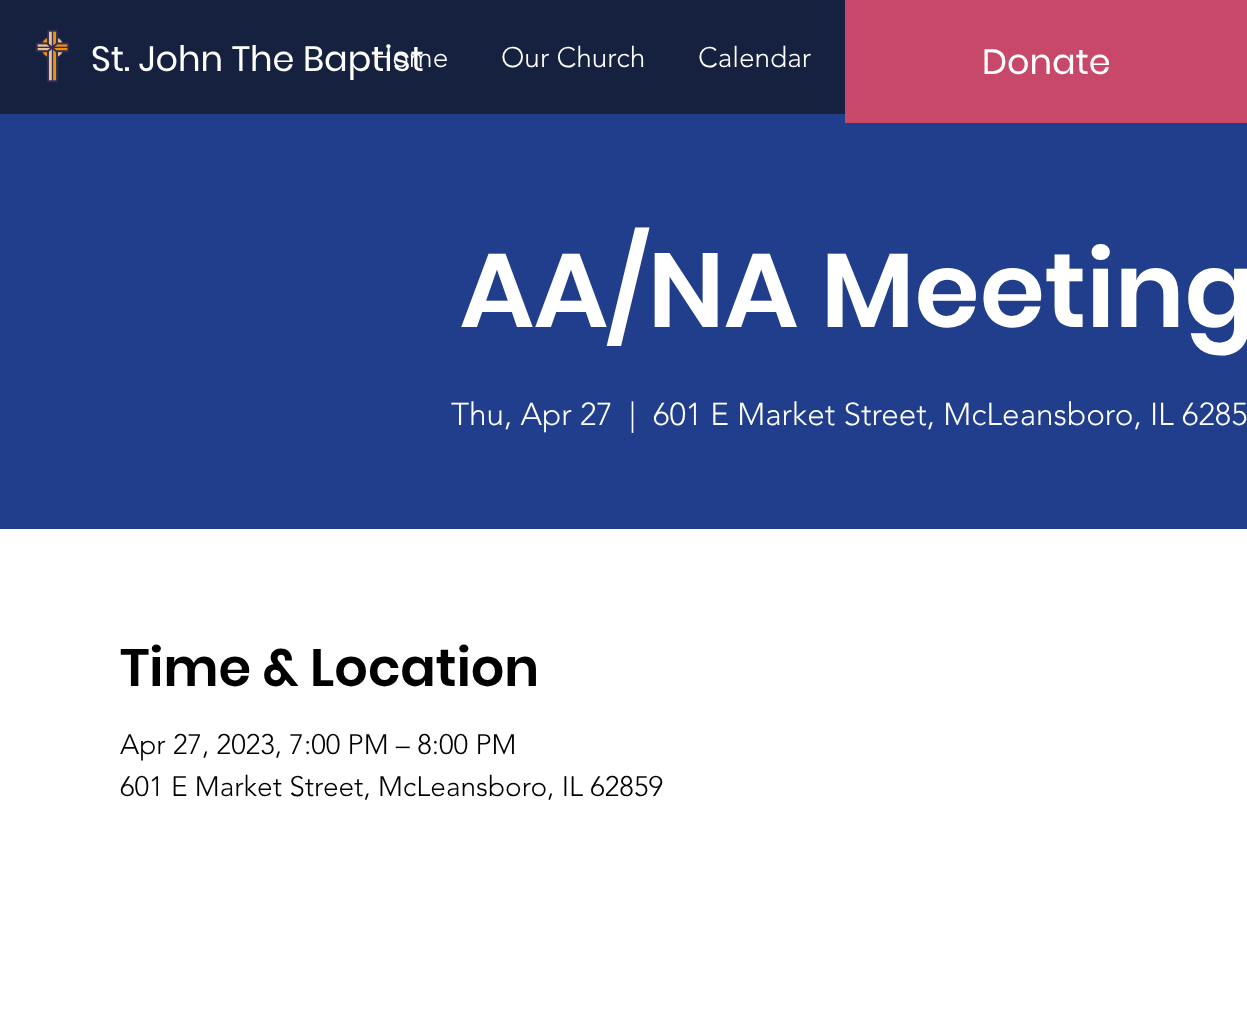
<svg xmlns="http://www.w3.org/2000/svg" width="1247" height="1020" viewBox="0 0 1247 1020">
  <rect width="100%" height="100%" fill="#fff"/>
  <path d="M0 0h845v114H0z" fill="#16213f"/>
  <image x="35" y="29" width="35" height="54" href="img/1.png"/>
  <path d="M0 114h1247v415H0z" fill="#213e8c"/>
  <path d="M845 0h402v123H845z" fill="#c84869"/>
  <text x="372" y="67" font-family="'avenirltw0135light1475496'" font-size="28" font-weight="300" fill="#fff">Home</text>
  <text x="91" y="71" font-family="Poppins" font-size="35" fill="#fff">St. John The Baptist</text>
  <g font-family="'avenirltw0135light1475496'" font-size="28" font-weight="300" fill="#fff">
    <text x="501" y="67">Our Church</text>
    <text x="698" y="67">Calendar</text>
  </g>
  <text x="982" y="74" font-family="Poppins" font-size="35" fill="#fff">Donate</text>
  <text x="460" y="327" font-family="Poppins" font-size="105" font-weight="600" fill="#fff">AA/NA Meeting</text>
  <g font-family="'avenirltw0135light1475496'" font-size="31.5" font-weight="300" fill="#fff">
    <text x="451" y="425">Thu, Apr 27</text>
    <text x="629" y="425">|</text>
    <text x="653" y="425">601 E Market Street, McLeansboro, IL 6285</text>
  </g>
  <text x="120" y="686" font-family="Poppins" font-size="52.5" font-weight="600" fill="#000">Time &amp; Location</text>
  <g font-family="'avenirltw0135light1475496'" font-size="28" font-weight="300" fill="#000">
    <text x="120" y="754">Apr 27, 2023, 7:00 PM – 8:00 PM</text>
    <text x="120" y="796">601 E Market Street, McLeansboro, IL 62859</text>
  </g>
</svg>
